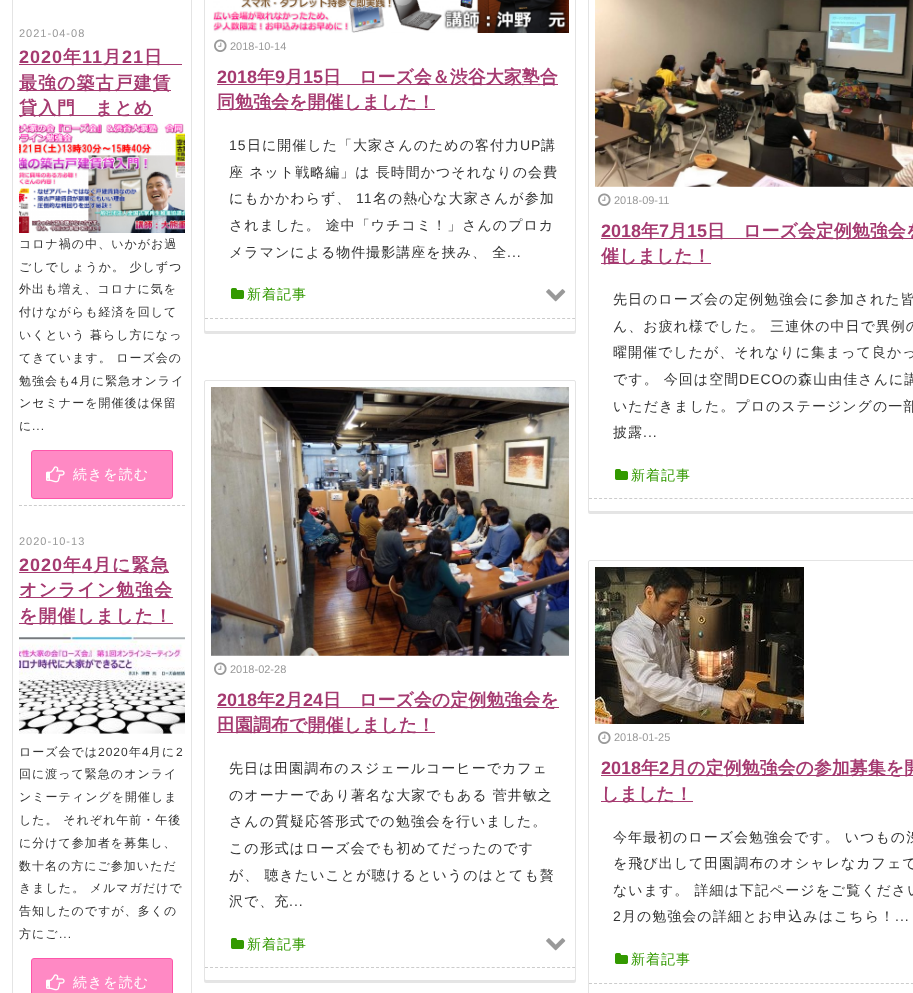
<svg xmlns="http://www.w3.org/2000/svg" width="913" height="993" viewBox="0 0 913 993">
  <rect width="100%" height="100%" fill="#fff"/>
  <path d="M12-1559H192V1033C192 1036 189 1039 186 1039H18C15 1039 12 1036 12 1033ZM13-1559H191V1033C191 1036 189 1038 186 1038H18C15 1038 13 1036 13 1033Z" fill="#e4e4e4" fill-rule="evenodd"/>
  <path d="M19 64h163v1H19z" fill="#a53a70"/>
  <path d="M19 90h152v1H19z" fill="#a53a70"/>
  <path d="M19 115h134v1H19z" fill="#a53a70"/>
  <image x="19" y="123" width="166" height="110" href="img/1.png"/>
  <path d="M19 505.5H185" fill="none" stroke="#ccc" stroke-dasharray="3 1.94"/>
  <rect x="31.5" y="450.5" width="141" height="48" rx="2.5" fill="#ff89c4" stroke="#fe56aa"/>
  <image x="46" y="466" width="19" height="17" href="img/2.png"/>
  <path d="M19 572h150v1H19z" fill="#a53a70"/>
  <path d="M19 597h154v1H19z" fill="#a53a70"/>
  <path d="M19 623h154v1H19z" fill="#a53a70"/>
  <image x="19" y="630" width="166" height="104" href="img/3.png"/>
  <rect x="31.5" y="958.5" width="141" height="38" rx="2.5" fill="#ff89c4" stroke="#fe56aa"/>
  <image x="46" y="974" width="19" height="17" href="img/2.png"/>
  <rect x="204" y="-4" width="372" height="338" rx="2" fill="#0000001a" filter="blur(0.5px)"/>
  <rect x="204.5" y="-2.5" width="371" height="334" rx="1.5" fill="#fff" stroke="#e4e4e4"/>
  <image x="213" y="0" width="356" height="33" href="img/4.png"/>
  <image x="214" y="39" width="13" height="13" href="img/5.png"/>
  <path d="M217 84h341v1H217z" fill="#a53a70"/>
  <path d="M217 109h218v1H217z" fill="#a53a70"/>
  <path d="M205 318.5H575" fill="none" stroke="#ccc" stroke-dasharray="3 2.03"/>
  <image x="231" y="288" width="13" height="11" href="img/6.png"/>
  <image x="546" y="289" width="20" height="13" href="img/7.png"/>
  <rect x="588" y="-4" width="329" height="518" rx="2" fill="#0000001a" filter="blur(0.5px)"/>
  <rect x="588.5" y="-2.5" width="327" height="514" rx="1.5" fill="#fff" stroke="#e4e4e4"/>
  <image x="595" y="0" width="318" height="187" href="img/8.png"/>
  <image x="598" y="193" width="13" height="13" href="img/5.png"/>
  <path d="M601 238h312v1H601z" fill="#a53a70"/>
  <path d="M601 263h110v1H601z" fill="#a53a70"/>
  <path d="M589 498.5H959" fill="none" stroke="#ccc" stroke-dasharray="3 2.03"/>
  <image x="615" y="469" width="13" height="11" href="img/6.png"/>
  <rect x="204" y="382" width="372" height="601" rx="2" fill="#0000001a" filter="blur(0.5px)"/>
  <rect x="204.5" y="380.5" width="371" height="600" rx="1.5" fill="#fff" stroke="#e4e4e4"/>
  <image x="211" y="387" width="358" height="269" href="img/9.png"/>
  <image x="214" y="662" width="13" height="13" href="img/5.png"/>
  <path d="M217 707h342v1H217z" fill="#a53a70"/>
  <path d="M217 732h218v1H217z" fill="#a53a70"/>
  <path d="M205 967.5H575" fill="none" stroke="#ccc" stroke-dasharray="3 2.03"/>
  <image x="231" y="938" width="13" height="11" href="img/6.png"/>
  <image x="546" y="938" width="20" height="13" href="img/7.png"/>
  <rect x="588.5" y="560.5" width="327" height="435" rx="1.5" fill="none" stroke="#e4e4e4"/>
  <image x="595" y="567" width="209" height="157" href="img/10.png"/>
  <image x="598" y="731" width="13" height="13" href="img/5.png"/>
  <path d="M601 775h312v1H601z" fill="#a53a70"/>
  <path d="M601 801h92v1H601z" fill="#a53a70"/>
  <path d="M589 983.5H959" fill="none" stroke="#ccc" stroke-dasharray="3 2.03"/>
  <image x="615" y="953" width="13" height="11" href="img/6.png"/>
  <text x="19" y="37" font-family="Liberation Sans" font-size="11" letter-spacing="1" fill="#999">2021-04-08</text>
  <text x="19" y="63" font-family="Liberation Sans" font-size="18" font-weight="bold" letter-spacing="1" fill="#a53a70">2020</text>
  <text x="63" y="63" font-family="WenQuanYi Zen Hei" font-size="18" font-weight="bold" letter-spacing="1" fill="#a53a70">年</text>
  <text x="82" y="63" font-family="Liberation Sans" font-size="18" font-weight="bold" letter-spacing="1" fill="#a53a70">11</text>
  <text x="103" y="63" font-family="WenQuanYi Zen Hei" font-size="18" font-weight="bold" letter-spacing="1" fill="#a53a70">月</text>
  <text x="122" y="63" font-family="Liberation Sans" font-size="18" font-weight="bold" letter-spacing="1" fill="#a53a70">21</text>
  <g font-family="WenQuanYi Zen Hei" font-size="18" font-weight="bold" letter-spacing="1" fill="#a53a70">
    <text x="144" y="63">日</text>
    <text x="19" y="89">最強の築古戸建賃</text>
    <text x="19" y="114">貸入門　まとめ</text>
  </g>
  <g font-family="WenQuanYi Zen Hei" font-size="12" font-weight="500" letter-spacing="1" fill="#333">
    <text x="19" y="248">コロナ禍の中、いかがお過</text>
    <text x="19" y="271">ごしでしょうか。 少しずつ</text>
    <text x="19" y="293">外出も増え、コロナに気を</text>
    <text x="19" y="316">付けながらも経済を回して</text>
    <text x="19" y="339">いくという 暮らし方になっ</text>
    <text x="19" y="362">てきています。 ローズ会の</text>
    <text x="19" y="385">勉強会も</text>
  </g>
  <text x="71" y="385" font-family="Liberation Sans" font-size="12" letter-spacing="1" fill="#333">4</text>
  <g font-family="WenQuanYi Zen Hei" font-size="12" font-weight="500" letter-spacing="1" fill="#333">
    <text x="79" y="385">月に緊急オンライ</text>
    <text x="19" y="407">ンセミナーを開催後は保留</text>
    <text x="19" y="430">に</text>
  </g>
  <text x="32" y="430" font-family="Liberation Sans" font-size="12" letter-spacing="1" fill="#333">...</text>
  <text x="73" y="479" font-family="WenQuanYi Zen Hei" font-size="14" font-weight="500" letter-spacing="1" fill="#fff">続きを読む</text>
  <text x="19" y="545" font-family="Liberation Sans" font-size="11" letter-spacing="1" fill="#999">2020-10-13</text>
  <text x="19" y="571" font-family="Liberation Sans" font-size="18" font-weight="bold" letter-spacing="1" fill="#a53a70">2020</text>
  <text x="63" y="571" font-family="WenQuanYi Zen Hei" font-size="18" font-weight="bold" letter-spacing="1" fill="#a53a70">年</text>
  <text x="82" y="571" font-family="Liberation Sans" font-size="18" font-weight="bold" letter-spacing="1" fill="#a53a70">4</text>
  <g font-family="WenQuanYi Zen Hei" font-size="18" font-weight="bold" letter-spacing="1" fill="#a53a70">
    <text x="93" y="571">月に緊急</text>
    <text x="19" y="596">オンライン勉強会</text>
    <text x="19" y="622">を開催しました！</text>
  </g>
  <text x="19" y="756" font-family="WenQuanYi Zen Hei" font-size="12" font-weight="500" letter-spacing="1" fill="#333">ローズ会では</text>
  <text x="98" y="756" font-family="Liberation Sans" font-size="12" letter-spacing="1" fill="#333">2020</text>
  <text x="129" y="756" font-family="WenQuanYi Zen Hei" font-size="12" font-weight="500" letter-spacing="1" fill="#333">年</text>
  <text x="142" y="756" font-family="Liberation Sans" font-size="12" letter-spacing="1" fill="#333">4</text>
  <text x="149" y="756" font-family="WenQuanYi Zen Hei" font-size="12" font-weight="500" letter-spacing="1" fill="#333">月に</text>
  <text x="176" y="756" font-family="Liberation Sans" font-size="12" letter-spacing="1" fill="#333">2</text>
  <g font-family="WenQuanYi Zen Hei" font-size="12" font-weight="500" letter-spacing="1" fill="#333">
    <text x="19" y="778">回に渡って緊急のオンライ</text>
    <text x="19" y="801">ンミーティングを開催しま</text>
    <text x="19" y="824">した。 それぞれ午前・午後</text>
    <text x="19" y="847">に分けて参加者を募集し、</text>
    <text x="19" y="870">数十名の方にご参加いただ</text>
    <text x="19" y="892">きました。 メルマガだけで</text>
    <text x="19" y="915">告知したのですが、多くの</text>
    <text x="19" y="938">方にご</text>
  </g>
  <text x="59" y="938" font-family="Liberation Sans" font-size="12" letter-spacing="1" fill="#333">...</text>
  <text x="73" y="987" font-family="WenQuanYi Zen Hei" font-size="14" font-weight="500" letter-spacing="1" fill="#fff">続きを読む</text>
  <text x="230" y="50" font-family="Liberation Sans" font-size="11" fill="#999">2018-10-14</text>
  <text x="217" y="83" font-family="Liberation Sans" font-size="18" font-weight="bold" fill="#a53a70">2018</text>
  <text x="257" y="83" font-family="WenQuanYi Zen Hei" font-size="18" font-weight="bold" fill="#a53a70">年</text>
  <text x="275" y="83" font-family="Liberation Sans" font-size="18" font-weight="bold" fill="#a53a70">9</text>
  <text x="285" y="83" font-family="WenQuanYi Zen Hei" font-size="18" font-weight="bold" fill="#a53a70">月</text>
  <text x="303" y="83" font-family="Liberation Sans" font-size="18" font-weight="bold" fill="#a53a70">15</text>
  <g font-family="WenQuanYi Zen Hei" font-size="18" font-weight="bold" fill="#a53a70">
    <text x="323" y="83">日　ローズ会＆渋谷大家塾合</text>
    <text x="217" y="108">同勉強会を開催しました！</text>
  </g>
  <text x="229" y="150" font-family="Liberation Sans" font-size="14" letter-spacing="1" fill="#333">15</text>
  <text x="247" y="150" font-family="WenQuanYi Zen Hei" font-size="14" font-weight="500" letter-spacing="1" fill="#333">日に開催した「大家さんのための客付力</text>
  <text x="520" y="150" font-family="Liberation Sans" font-size="14" letter-spacing="1" fill="#333">UP</text>
  <g font-family="WenQuanYi Zen Hei" font-size="14" font-weight="500" letter-spacing="1" fill="#333">
    <text x="541" y="150">講</text>
    <text x="229" y="177">座 ネット戦略編」は 長時間かつそれなりの会費</text>
    <text x="229" y="203">にもかかわらず、</text>
  </g>
  <text x="356" y="203" font-family="Liberation Sans" font-size="14" letter-spacing="1" fill="#333">11</text>
  <g font-family="WenQuanYi Zen Hei" font-size="14" font-weight="500" letter-spacing="1" fill="#333">
    <text x="373" y="203">名の熱心な大家さんが参加</text>
    <text x="229" y="230">されました。 途中「ウチコミ！」さんのプロカ</text>
    <text x="229" y="257">メラマンによる物件撮影講座を挟み、 全</text>
  </g>
  <text x="507" y="257" font-family="Liberation Sans" font-size="14" letter-spacing="1" fill="#333">...</text>
  <text x="247" y="299" font-family="WenQuanYi Zen Hei" font-size="14" font-weight="500" letter-spacing="1" fill="#390">新着記事</text>
  <text x="614" y="204" font-family="Liberation Sans" font-size="11" fill="#999">2018-09-11</text>
  <text x="601" y="237" font-family="Liberation Sans" font-size="18" font-weight="bold" fill="#a53a70">2018</text>
  <text x="641" y="237" font-family="WenQuanYi Zen Hei" font-size="18" font-weight="bold" fill="#a53a70">年</text>
  <text x="659" y="237" font-family="Liberation Sans" font-size="18" font-weight="bold" fill="#a53a70">7</text>
  <text x="669" y="237" font-family="WenQuanYi Zen Hei" font-size="18" font-weight="bold" fill="#a53a70">月</text>
  <text x="687" y="237" font-family="Liberation Sans" font-size="18" font-weight="bold" fill="#a53a70">15</text>
  <g font-family="WenQuanYi Zen Hei" font-size="18" font-weight="bold" fill="#a53a70">
    <text x="707" y="237">日　ローズ会定例勉強会を</text>
    <text x="601" y="262">催しました！</text>
  </g>
  <g font-family="WenQuanYi Zen Hei" font-size="14" font-weight="500" letter-spacing="1" fill="#333">
    <text x="613" y="304">先日のローズ会の定例勉強会に参加された皆</text>
    <text x="613" y="331">ん、お疲れ様でした。 三連休の中日で異例の</text>
    <text x="613" y="357">曜開催でしたが、それなりに集まって良かっ</text>
    <text x="613" y="384">です。 今回は空間</text>
  </g>
  <text x="739" y="384" font-family="Liberation Sans" font-size="14" letter-spacing="1" fill="#333">DECO</text>
  <g font-family="WenQuanYi Zen Hei" font-size="14" font-weight="500" letter-spacing="1" fill="#333">
    <text x="783" y="384">の森山由佳さんに講</text>
    <text x="613" y="411">いただきました。プロのステージングの一部</text>
    <text x="613" y="437">披露</text>
  </g>
  <text x="643" y="437" font-family="Liberation Sans" font-size="14" letter-spacing="1" fill="#333">...</text>
  <text x="631" y="480" font-family="WenQuanYi Zen Hei" font-size="14" font-weight="500" letter-spacing="1" fill="#390">新着記事</text>
  <text x="230" y="673" font-family="Liberation Sans" font-size="11" fill="#999">2018-02-28</text>
  <text x="217" y="706" font-family="Liberation Sans" font-size="18" font-weight="bold" fill="#a53a70">2018</text>
  <text x="257" y="706" font-family="WenQuanYi Zen Hei" font-size="18" font-weight="bold" fill="#a53a70">年</text>
  <text x="275" y="706" font-family="Liberation Sans" font-size="18" font-weight="bold" fill="#a53a70">2</text>
  <text x="285" y="706" font-family="WenQuanYi Zen Hei" font-size="18" font-weight="bold" fill="#a53a70">月</text>
  <text x="303" y="706" font-family="Liberation Sans" font-size="18" font-weight="bold" fill="#a53a70">24</text>
  <g font-family="WenQuanYi Zen Hei" font-size="18" font-weight="bold" fill="#a53a70">
    <text x="323" y="706">日　ローズ会の定例勉強会を</text>
    <text x="217" y="731">田園調布で開催しました！</text>
  </g>
  <g font-family="WenQuanYi Zen Hei" font-size="14" font-weight="500" letter-spacing="1" fill="#333">
    <text x="229" y="773">先日は田園調布のスジェールコーヒーでカフェ</text>
    <text x="229" y="800">のオーナーであり著名な大家でもある 菅井敏之</text>
    <text x="229" y="826">さんの質疑応答形式での勉強会を行いました。</text>
    <text x="229" y="853">この形式はローズ会でも初めてだったのです</text>
    <text x="229" y="880">が、 聴きたいことが聴けるというのはとても贅</text>
    <text x="229" y="906">沢で、充</text>
  </g>
  <text x="289" y="906" font-family="Liberation Sans" font-size="14" letter-spacing="1" fill="#333">...</text>
  <text x="247" y="949" font-family="WenQuanYi Zen Hei" font-size="14" font-weight="500" letter-spacing="1" fill="#390">新着記事</text>
  <text x="614" y="741" font-family="Liberation Sans" font-size="11" fill="#999">2018-01-25</text>
  <text x="601" y="774" font-family="Liberation Sans" font-size="18" font-weight="bold" fill="#a53a70">2018</text>
  <text x="641" y="774" font-family="WenQuanYi Zen Hei" font-size="18" font-weight="bold" fill="#a53a70">年</text>
  <text x="659" y="774" font-family="Liberation Sans" font-size="18" font-weight="bold" fill="#a53a70">2</text>
  <g font-family="WenQuanYi Zen Hei" font-size="18" font-weight="bold" fill="#a53a70">
    <text x="669" y="774">月の定例勉強会の参加募集を開</text>
    <text x="601" y="800">しました！</text>
  </g>
  <g font-family="WenQuanYi Zen Hei" font-size="14" font-weight="500" letter-spacing="1" fill="#333">
    <text x="613" y="842">今年最初のローズ会勉強会です。 いつもの渋</text>
    <text x="613" y="868">を飛び出して田園調布のオシャレなカフェで</text>
    <text x="613" y="895">ないます。 詳細は下記ページをご覧ください</text>
  </g>
  <text x="613" y="921" font-family="Liberation Sans" font-size="14" letter-spacing="1" fill="#333">2</text>
  <text x="622" y="921" font-family="WenQuanYi Zen Hei" font-size="14" font-weight="500" letter-spacing="1" fill="#333">月の勉強会の詳細とお申込みはこちら！</text>
  <text x="895" y="921" font-family="Liberation Sans" font-size="14" letter-spacing="1" fill="#333">...</text>
  <text x="631" y="964" font-family="WenQuanYi Zen Hei" font-size="14" font-weight="500" letter-spacing="1" fill="#390">新着記事</text>
</svg>
